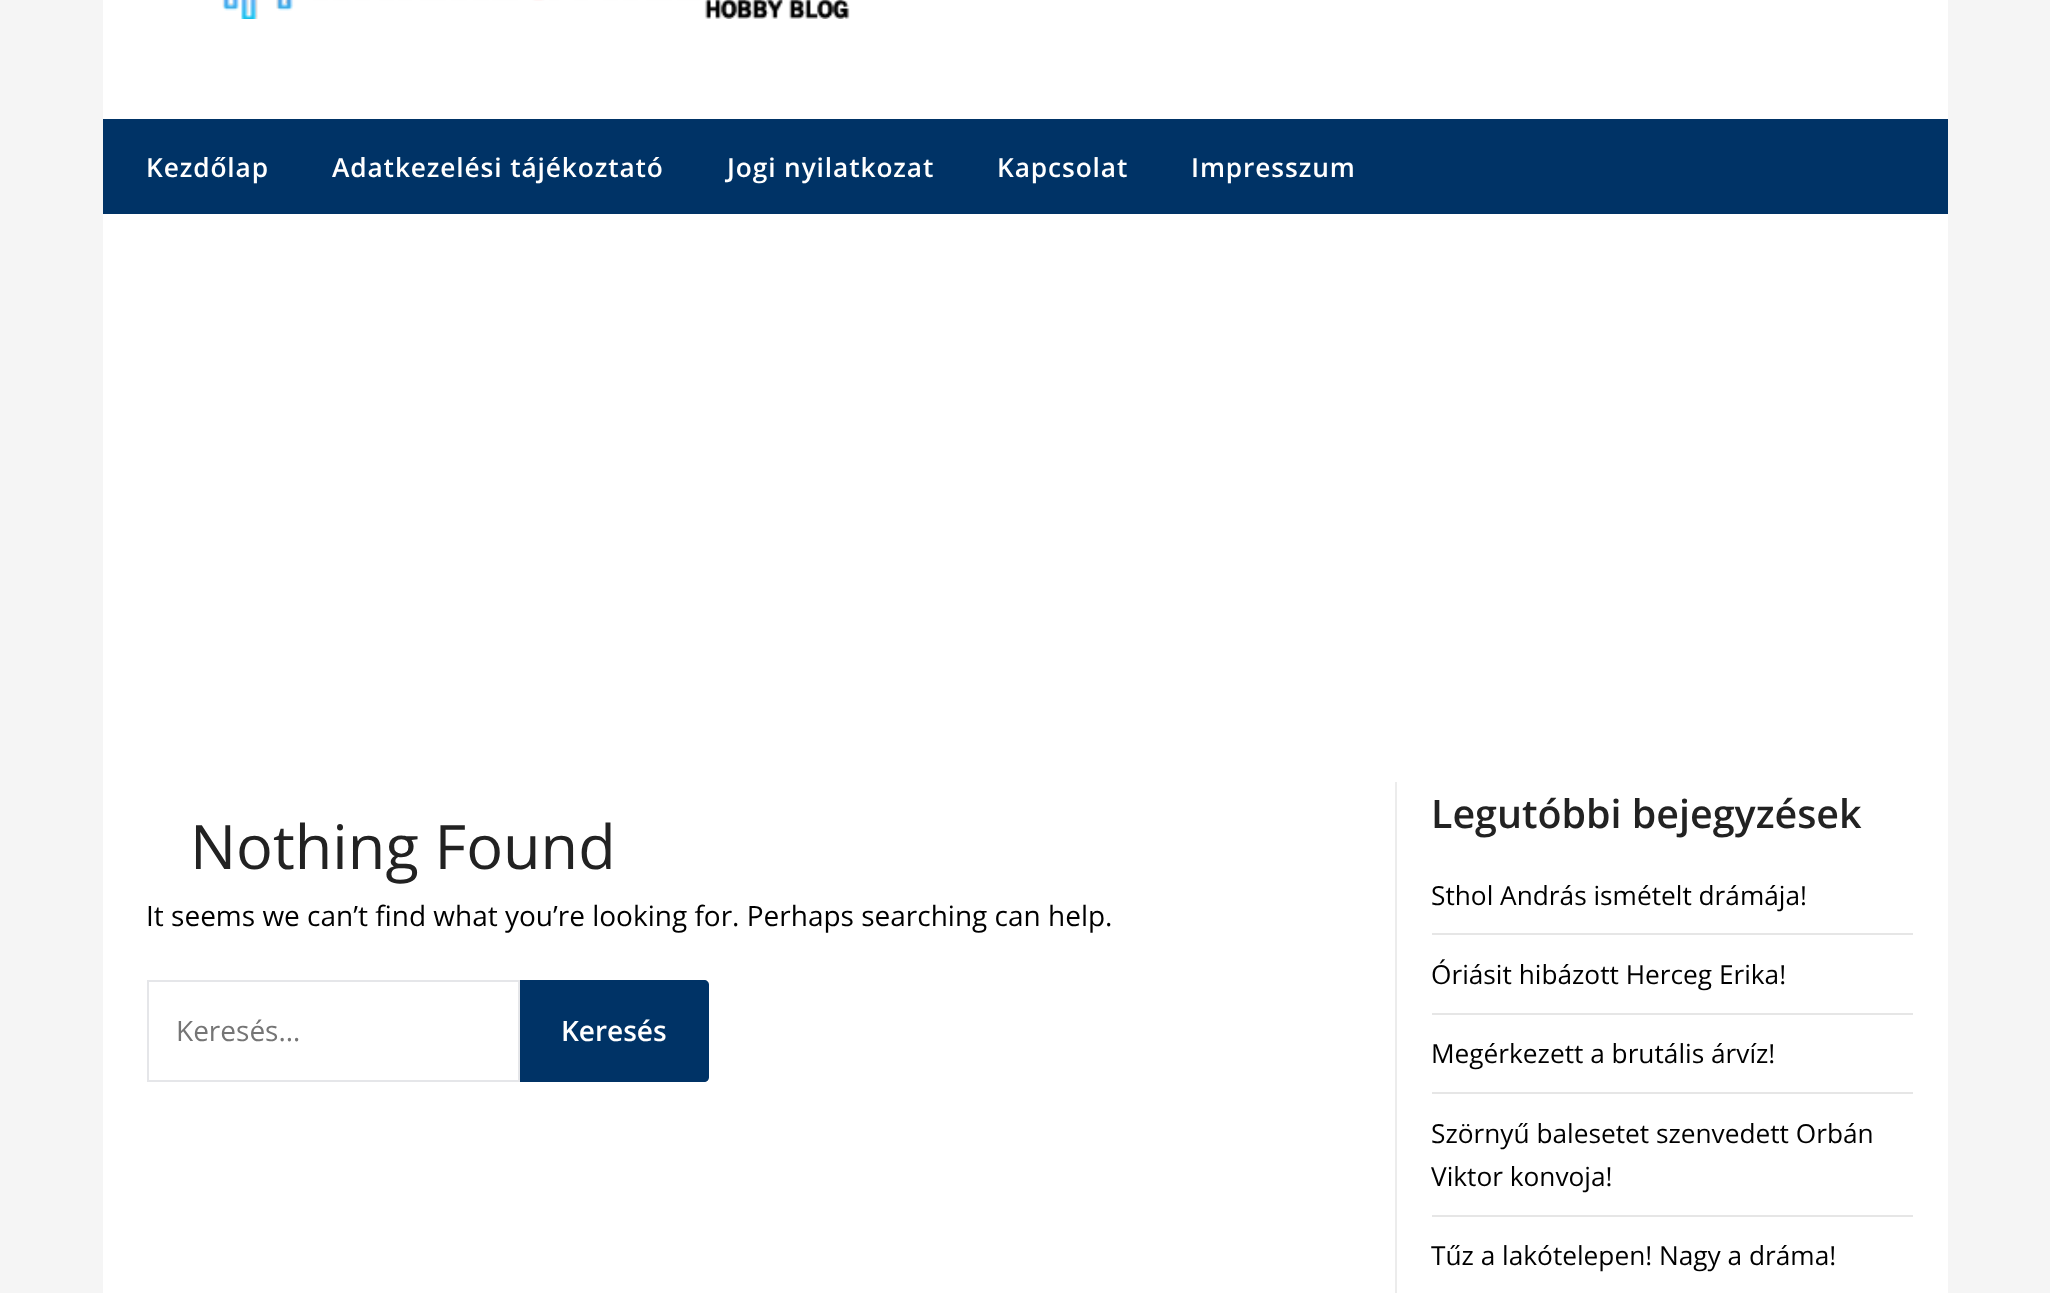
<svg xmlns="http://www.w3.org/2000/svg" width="2050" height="1293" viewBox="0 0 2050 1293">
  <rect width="100%" height="100%" fill="#f5f5f5"/>
  <path d="M103 0h1845v119H103z" fill="#fff"/>
  <image x="222" y="0" width="628" height="19" href="img/1.png"/>
  <path d="M103 119h1845v95H103z" fill="#036"/>
  <path d="M103 214h1845v1079H103z" fill="#fff"/>
  <path d="M148 981h371v100H148z" fill="none" stroke="#e5e6e9" stroke-width="2"/>
  <path d="M520 980H704C707 980 709 982 709 985V1077C709 1080 707 1082 704 1082H520Z" fill="#036"/>
  <path d="M1395 782h2v511H1395z" fill="#ececec"/>
  <path d="M1432 933h481v2H1432z" fill="#e6e6e6"/>
  <path d="M1432 1013h481v2H1432z" fill="#e6e6e6"/>
  <path d="M1432 1092h481v2H1432z" fill="#e6e6e6"/>
  <path d="M1432 1215h481v2H1432z" fill="#e6e6e6"/>
  <g font-family="Open Sans" font-size="26.25" font-weight="600" letter-spacing="0.9" fill="#fff">
    <text x="146" y="177">Kezdőlap</text>
    <text x="332" y="177">Adatkezelési tájékoztató</text>
    <text x="727" y="177">Jogi nyilatkozat</text>
    <text x="997" y="177">Kapcsolat</text>
    <text x="1191" y="177">Impresszum</text>
  </g>
  <text x="190" y="869" font-family="Open Sans" font-size="61.25" fill="#222">Nothing Found</text>
  <text x="146" y="926" font-family="Open Sans" font-size="28" fill="#000">It seems we can’t find what you’re looking for. Perhaps searching can help.</text>
  <text x="176" y="1041" font-family="Open Sans" font-size="28" fill="#757575">Keresés…</text>
  <text x="561" y="1041" font-family="Open Sans" font-size="28" font-weight="600" fill="#fff">Keresés</text>
  <text x="1431" y="828" font-family="Open Sans" font-size="39.4" font-weight="600" fill="#222">Legutóbbi bejegyzések</text>
  <g font-family="Open Sans" font-size="26.25" fill="#000">
    <text x="1431" y="905">Sthol András ismételt drámája!</text>
    <text x="1431" y="984">Óriásit hibázott Herceg Erika!</text>
    <text x="1431" y="1063">Megérkezett a brutális árvíz!</text>
    <text x="1431" y="1143">Szörnyű balesetet szenvedett Orbán</text>
    <text x="1431" y="1186">Viktor konvoja!</text>
    <text x="1431" y="1265">Tűz a lakótelepen! Nagy a dráma!</text>
  </g>
</svg>
